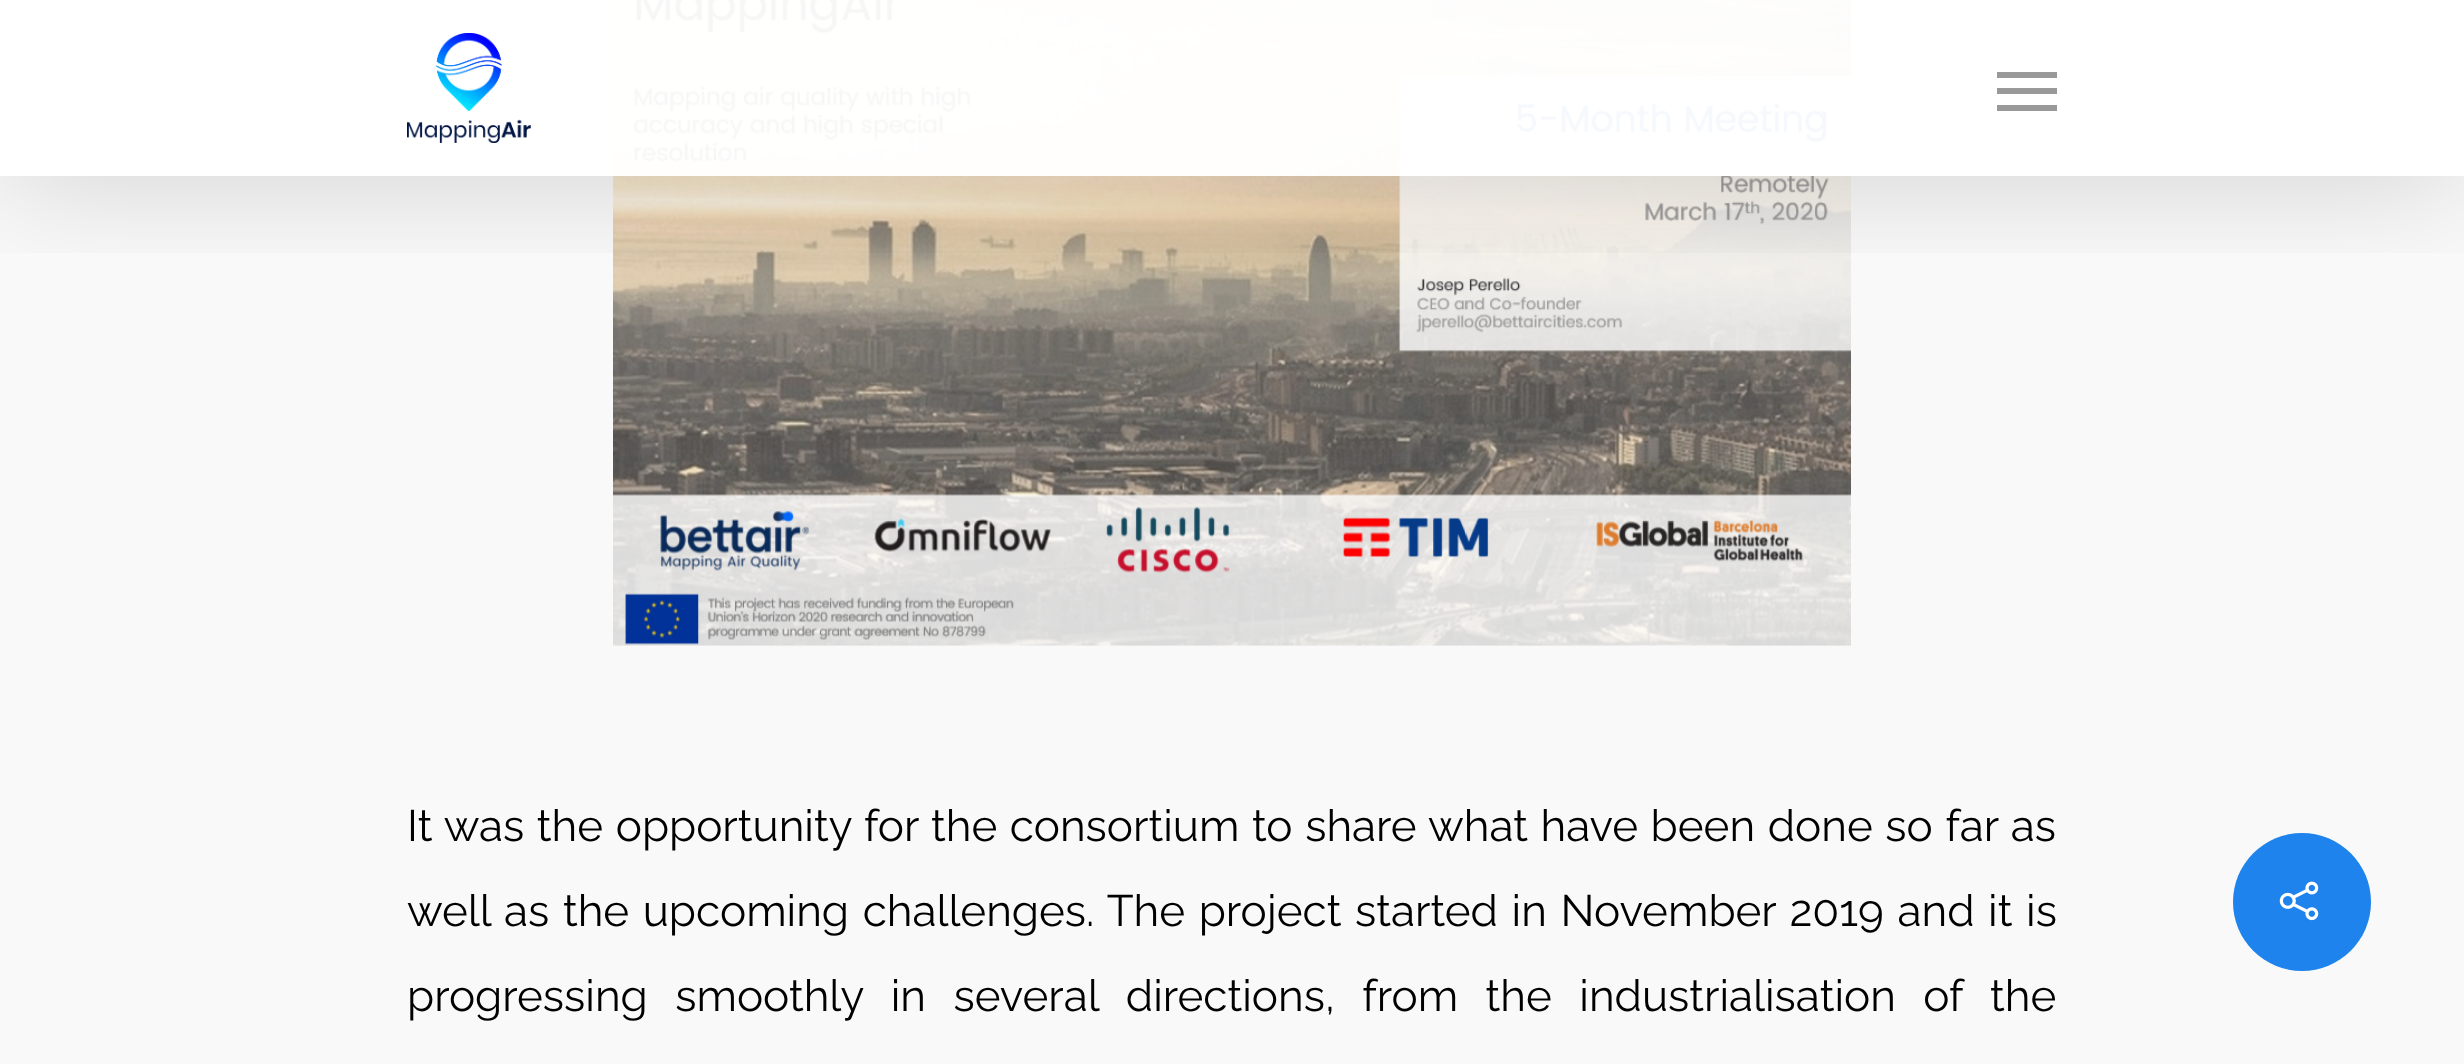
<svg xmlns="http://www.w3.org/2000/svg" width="2464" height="1064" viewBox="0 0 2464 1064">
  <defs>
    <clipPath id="clip1"><path d="M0 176h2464v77H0z"/></clipPath>
  </defs>
  <rect width="100%" height="100%" fill="#f9f9f9"/>
  <image x="613" y="0" width="1238" height="646" href="img/2.png"/>
  <g clip-path="url(#clip1)">
    <path d="M0 8h2464v176H0z" fill="#00000026" filter="blur(62px)"/>
  </g>
  <path d="M0 0h2464v176H0z" fill="#fffffff5"/>
  <image x="407" y="33" width="124" height="110" href="img/1.png"/>
  <path d="M1997 72h60v6H1997z" fill="#999"/>
  <path d="M1997 105h60v6H1997z" fill="#999"/>
  <path d="M1997 88h60v6H1997z" fill="#999"/>
  <circle cx="2302" cy="902" r="69" fill="#1e83ec"/>
  <image x="2279" y="881" width="40" height="40" href="img/3.png"/>
  <g font-family="Raleway" font-size="44" fill="#000">
    <text x="407" y="841" word-spacing="1.4">It was the opportunity for the consortium to share what have been done so far as</text>
    <text x="407" y="926" word-spacing="2.4">well as the upcoming challenges. The project started in November 2019 and it is</text>
    <text x="407" y="1011" word-spacing="16.25">progressing smoothly in several directions, from the industrialisation of the</text>
  </g>
</svg>
